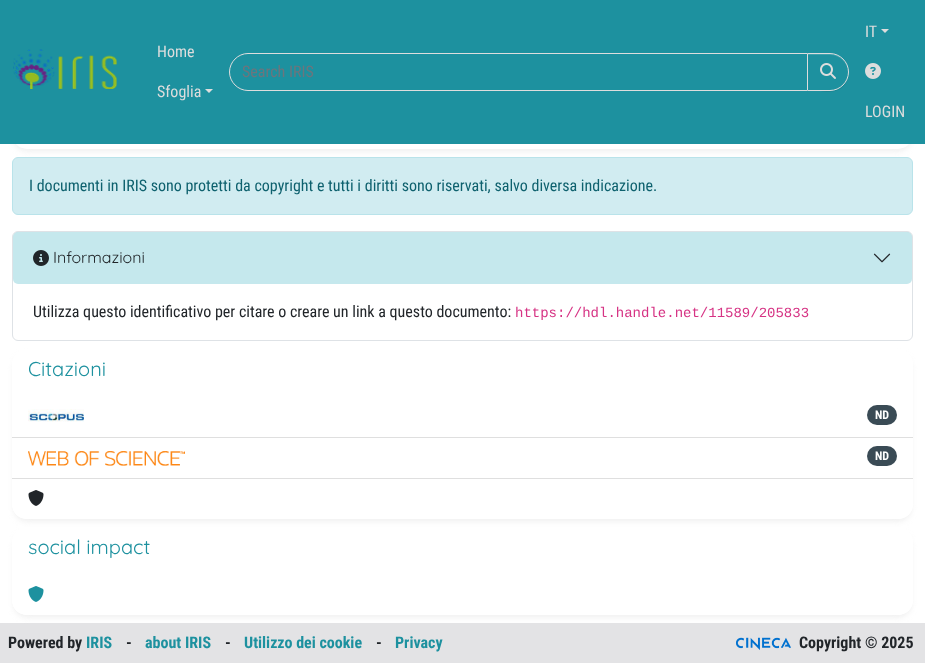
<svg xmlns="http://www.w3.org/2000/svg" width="925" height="663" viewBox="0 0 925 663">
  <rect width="100%" height="100%" fill="#fff"/>
  <rect x="14" y="59" width="897" height="92" rx="13" fill="#eee" filter="blur(3px)"/>
  <rect x="12" y="53" width="901" height="96" rx="15" fill="#fff"/>
  <path d="M0 0h925v144H0z" fill="#1d919f"/>
  <image x="13" y="49" width="104" height="40" href="img/1.png"/>
  <path d="M205 89H213L209 93Z" fill="#ddd"/>
  <path d="M248 53.5H807.5V90.5H248C238 90.5 229.5 82 229.5 72C229.5 62 238 53.5 248 53.5Z" fill="none" stroke="#ddd"/>
  <rect x="807" y="54" width="42" height="38" rx="19" fill="#00000012" filter="blur(0.5px)"/>
  <path d="M807 53H830C840.5 53 849 61.5 849 72C849 82.5 840.5 91 830 91H807Z" fill="#1d919f"/>
  <path d="M808 55H830C840 55 848 63 848 72C848 64 842 56 834 54H808Z" fill="#3fa2ad"/>
  <path d="M807.5 53.5H830C840 53.5 848.5 62 848.5 72C848.5 82 840 90.5 830 90.5H807.5Z" fill="none" stroke="#ddd"/>
  <image x="820" y="63" width="16" height="16" href="img/2.png"/>
  <path d="M881 29H889L885 33Z" fill="#ddd"/>
  <image x="865" y="63" width="16" height="16" href="img/3.png"/>
  <rect x="12.5" y="157.5" width="900" height="57" rx="5.5" fill="#d1ecf1" stroke="#b9e3ea"/>
  <rect x="12.5" y="231.5" width="900" height="109" rx="5.5" fill="none" stroke="#dee2e6"/>
  <rect x="13" y="232" width="899" height="52" rx="5" fill="#17a2b840"/>
  <image x="33" y="250" width="16" height="16" href="img/4.png"/>
  <image x="873" y="253" width="18" height="10" href="img/5.png"/>
  <rect x="14" y="355" width="897" height="166" rx="13" fill="#eee" filter="blur(3px)"/>
  <rect x="12" y="349" width="901" height="170" rx="15" fill="#fff"/>
  <path d="M12 437h901v1H12z" fill="#dfdfdf"/>
  <image x="28" y="409" width="56" height="13" href="img/6.png"/>
  <rect x="867" y="405" width="30" height="20" rx="10" fill="#3a4b55"/>
  <path d="M12 478h901v1H12z" fill="#dfdfdf"/>
  <image x="28" y="451" width="157" height="15" href="img/7.png"/>
  <rect x="867" y="446" width="30" height="20" rx="10" fill="#3a4b55"/>
  <path d="M12 479H913V504C913 512.5 906.5 519 898 519H27C18.5 519 12 512.5 12 504Z" fill="#fff"/>
  <image x="28" y="490" width="16" height="16" href="img/8.png"/>
  <path d="M0 623h925v40H0z" fill="#e3e3e5"/>
  <rect x="14" y="533" width="897" height="84" rx="13" fill="#eee" filter="blur(3px)"/>
  <rect x="12" y="527" width="901" height="88" rx="15" fill="#fff"/>
  <path d="M12 575H913V600C913 608.5 906.5 615 898 615H27C18.5 615 12 608.5 12 600Z" fill="#fff"/>
  <image x="28" y="586" width="16" height="16" href="img/9.png"/>
  <image x="736" y="637" width="55" height="13" href="img/10.png"/>
  <g font-family="Roboto Condensed" font-size="16" fill="#ddd">
    <text x="157" y="57">Home</text>
    <text x="157" y="97">Sfoglia</text>
  </g>
  <text x="242" y="77" font-family="Roboto Condensed" font-size="16" fill="#6c757d">Search IRIS</text>
  <g font-family="Roboto Condensed" font-size="16" fill="#ddd">
    <text x="865" y="37">IT</text>
    <text x="865" y="117">LOGIN</text>
  </g>
  <text x="29" y="191" font-family="Roboto Condensed" font-size="16" fill="#0e616e">I documenti in IRIS sono protetti da copyright e tutti i diritti sono riservati, salvo diversa indicazione.</text>
  <text x="53" y="263" font-family="Quicksand" font-size="16" font-weight="300" fill="#212529">Informazioni</text>
  <text x="33" y="317" font-family="Roboto Condensed" font-size="16" fill="#212529">Utilizza questo identificativo per citare o creare un link a questo documento:</text>
  <text x="515" y="317" font-family="Liberation Mono" font-size="14" fill="#d63384">https://hdl.handle.net/11589/205833</text>
  <text x="28" y="376" font-family="Quicksand" font-size="20" font-weight="300" fill="#1d919f">Citazioni</text>
  <g font-family="Roboto Condensed" font-size="12" font-weight="bold" fill="#fff">
    <text x="875" y="419">ND</text>
    <text x="875" y="460">ND</text>
  </g>
  <text x="28" y="554" font-family="Quicksand" font-size="20" font-weight="300" fill="#1d919f">social impact</text>
  <text x="8" y="648" font-family="Roboto Condensed" font-size="16" font-weight="bold" fill="#212529">Powered by</text>
  <text x="86" y="648" font-family="Roboto Condensed" font-size="16" font-weight="bold" fill="#1d919f">IRIS</text>
  <text x="126" y="648" font-family="Roboto Condensed" font-size="16" font-weight="bold" fill="#212529">-</text>
  <text x="145" y="648" font-family="Roboto Condensed" font-size="16" font-weight="bold" fill="#1d919f">about IRIS</text>
  <text x="225" y="648" font-family="Roboto Condensed" font-size="16" font-weight="bold" fill="#212529">-</text>
  <text x="244" y="648" font-family="Roboto Condensed" font-size="16" font-weight="bold" fill="#1d919f">Utilizzo dei cookie</text>
  <text x="376" y="648" font-family="Roboto Condensed" font-size="16" font-weight="bold" fill="#212529">-</text>
  <text x="395" y="648" font-family="Roboto Condensed" font-size="16" font-weight="bold" fill="#1d919f">Privacy</text>
  <text x="799" y="648" font-family="Roboto Condensed" font-size="16" font-weight="bold" fill="#212529">Copyright © 2025</text>
</svg>
